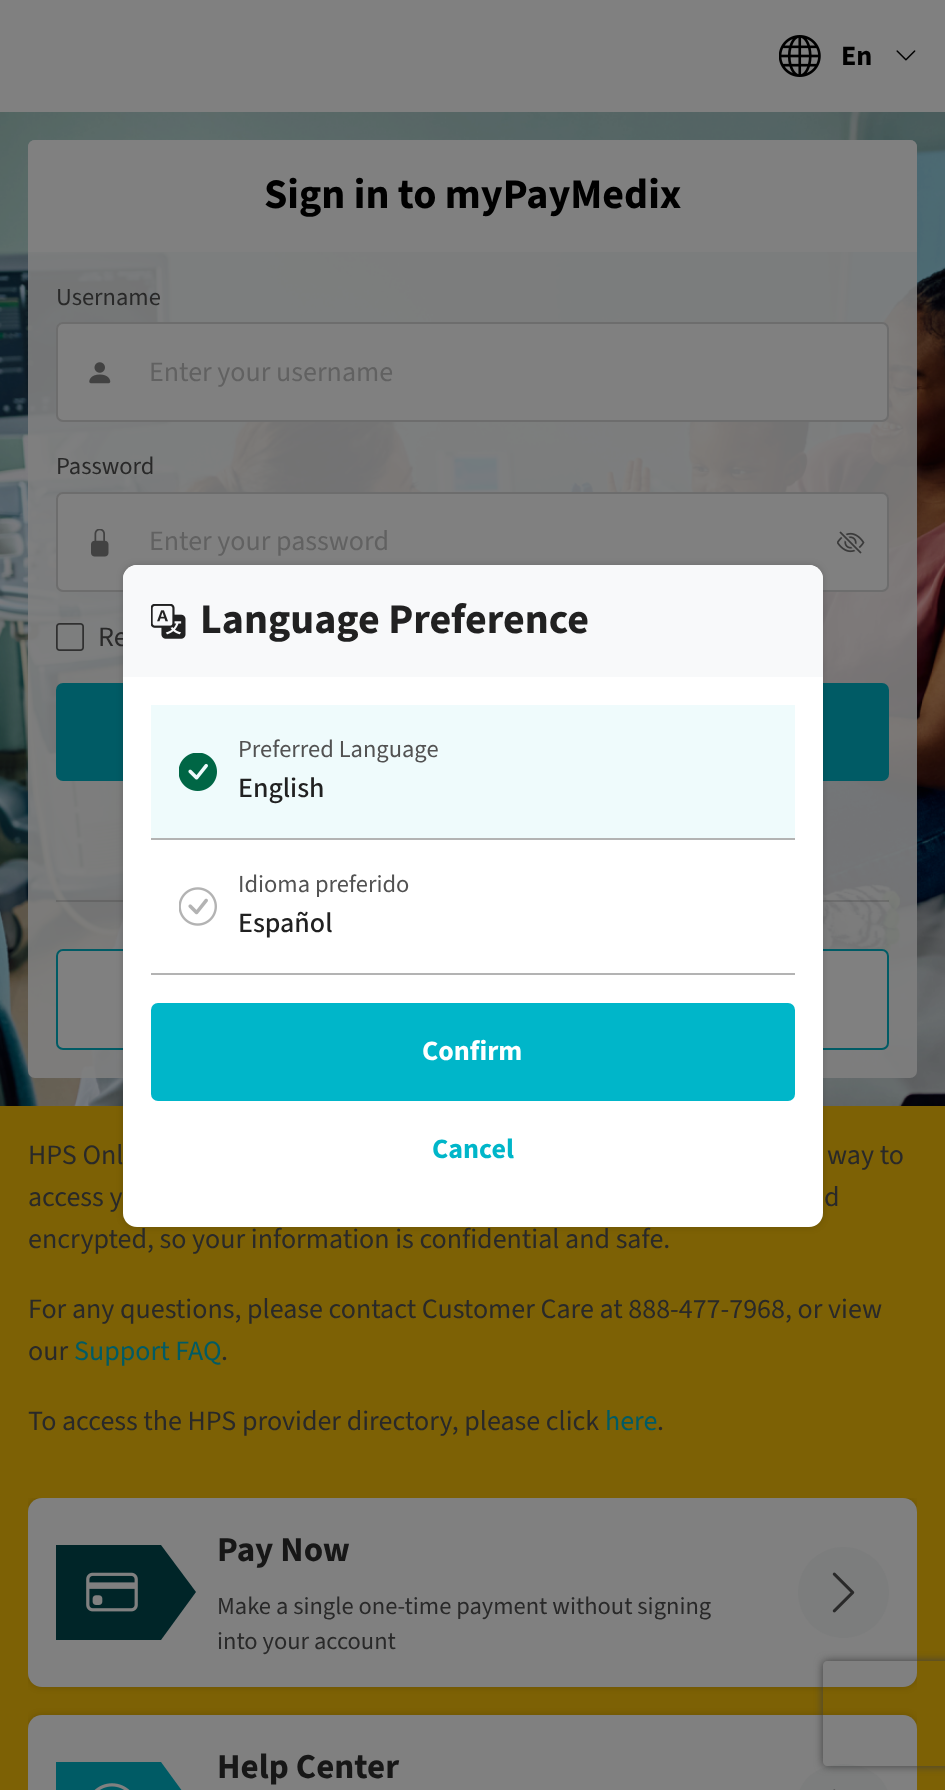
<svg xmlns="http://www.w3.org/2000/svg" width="945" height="1790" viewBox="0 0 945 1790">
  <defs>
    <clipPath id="clip1"><path d="M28 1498h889v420H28z"/></clipPath>
    <clipPath id="clip2"><path d="M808 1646H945V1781H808ZM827 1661H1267C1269 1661 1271 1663 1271 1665V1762C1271 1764 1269 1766 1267 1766H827C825 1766 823 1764 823 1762V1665C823 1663 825 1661 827 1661Z" clip-rule="evenodd"/></clipPath>
  </defs>
  <rect width="100%" height="100%" fill="#808080"/>
  <image x="779" y="35" width="42" height="42" href="img/1.png"/>
  <image x="896" y="50" width="20" height="11" href="img/2.png"/>
  <image x="0" y="112" width="945" height="994" href="img/3.png"/>
  <rect x="28" y="140" width="889" height="938" rx="7" fill="#808080e6"/>
  <path d="M35 140H910C914 140 917 143 917 147V252H28V147C28 143 31 140 35 140Z" fill="#808080"/>
  <rect x="56" y="322" width="833" height="100" rx="7" fill="#808080"/>
  <rect x="57" y="323" width="831" height="98" rx="6" fill="none" stroke="#5a5a5a80" stroke-width="2"/>
  <image x="89" y="362" width="22" height="22" href="img/4.png"/>
  <rect x="56" y="492" width="833" height="100" rx="7" fill="#808080"/>
  <rect x="57" y="493" width="831" height="98" rx="6" fill="none" stroke="#5a5a5a80" stroke-width="2"/>
  <image x="91" y="529" width="18" height="28" href="img/5.png"/>
  <image x="837" y="531" width="28" height="23" href="img/6.png"/>
  <image x="56" y="623" width="28" height="28" href="img/7.png"/>
  <rect x="56" y="683" width="833" height="98" rx="7" fill="#005b65"/>
  <path d="M56 900h67v2H56z" fill="#0000001f"/>
  <path d="M823 900h66v2H823z" fill="#0000001f"/>
  <rect x="57" y="950" width="831" height="99" rx="6" fill="#808080" stroke="#005b65" stroke-width="2"/>
  <path d="M0 1106h945v684H0z" fill="#7d6105"/>
  <g clip-path="url(#clip1)">
    <rect x="28" y="1498" width="889" height="189" rx="14" fill="#00000029" filter="blur(3.5px)"/>
  </g>
  <rect x="28" y="1498" width="889" height="189" rx="14" fill="#808080"/>
  <path d="M56 1545h105v95H56z" fill="#002528"/>
  <image x="86" y="1572" width="52" height="40" href="img/8.png"/>
  <path d="M161 1640V1545L196 1592Z" fill="#002528"/>
  <circle cx="843.5" cy="1592.5" r="45.5" fill="#7c7d7d"/>
  <image x="832" y="1572" width="23" height="41" href="img/9.png"/>
  <g clip-path="url(#clip1)">
    <rect x="28" y="1715" width="889" height="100" rx="14" fill="#00000029" filter="blur(3.5px)"/>
  </g>
  <rect x="28" y="1715" width="889" height="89" rx="14" fill="#808080"/>
  <path d="M56 1762h105v28H56z" fill="#005b65"/>
  <image x="94" y="1783" width="36" height="7" href="img/10.png"/>
  <path d="M161 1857V1762L196 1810Z" fill="#005b65"/>
  <rect x="798" y="1764" width="91" height="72" rx="45.5" fill="#7c7d7d"/>
  <image x="833" y="1789" width="3" height="1" href="img/11.png"/>
  <rect x="123" y="565" width="700" height="662" rx="14" fill="#00000029" filter="blur(3.5px)"/>
  <g clip-path="url(#clip2)">
    <rect x="823" y="1661" width="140" height="105" rx="4" fill="#404040" filter="blur(4.5px)"/>
  </g>
  <text x="841" y="65" font-family="'Source Sans 3'" font-size="28" font-weight="bold" fill="#000">En</text>
  <text x="264" y="208" font-family="'Source Sans 3'" font-size="42" font-weight="bold" fill="#000">Sign in to myPayMedix</text>
  <text x="56" y="305" font-family="'Source Sans 3'" font-size="24.5" fill="#292929">Username</text>
  <text x="149" y="381" font-family="'Source Sans 3'" font-size="28" fill="#616161">Enter your username</text>
  <text x="56" y="474" font-family="'Source Sans 3'" font-size="24.5" fill="#292929">Password</text>
  <text x="149" y="550" font-family="'Source Sans 3'" font-size="28" fill="#616161">Enter your password</text>
  <g font-family="'Source Sans 3'" font-size="28" fill="#292929">
    <text x="98" y="646">Re</text>
    <text x="28" y="1164">HPS Onl</text>
    <text x="827" y="1164">way to</text>
    <text x="28" y="1206">access y</text>
    <text x="824" y="1206">d</text>
    <text x="28" y="1248">encrypted, so your information is confidential and safe.</text>
    <text x="28" y="1318">For any questions, please contact Customer Care at 888-477-7968, or view</text>
    <text x="28" y="1360">our</text>
  </g>
  <text x="74" y="1360" font-family="'Source Sans 3'" font-size="28" fill="#005b65">Support FAQ</text>
  <g font-family="'Source Sans 3'" font-size="28" fill="#292929">
    <text x="221" y="1360">.</text>
    <text x="28" y="1430">To access the HPS provider directory, please click</text>
  </g>
  <text x="605" y="1430" font-family="'Source Sans 3'" font-size="28" fill="#005b65">here</text>
  <text x="657" y="1430" font-family="'Source Sans 3'" font-size="28" fill="#292929">.</text>
  <text x="217" y="1561" font-family="'Source Sans 3'" font-size="35" font-weight="bold" fill="#171717">Pay Now</text>
  <g font-family="'Source Sans 3'" font-size="24.5" fill="#292929">
    <text x="217" y="1614">Make a single one-time payment without signing</text>
    <text x="217" y="1649">into your account</text>
  </g>
  <text x="217" y="1778" font-family="'Source Sans 3'" font-size="35" font-weight="bold" fill="#171717">Help Center</text>
  <rect x="123" y="565" width="700" height="662" rx="14" fill="#fff"/>
  <path d="M137 565H809C816.5 565 823 571.5 823 579V677H123V579C123 571.5 129.5 565 137 565Z" fill="#f8f9fa"/>
  <image x="151" y="604" width="35" height="35" href="img/12.png"/>
  <text x="200" y="633" font-family="'Source Sans 3'" font-size="42" font-weight="bold" fill="#212121">Language Preference</text>
  <path d="M151 705h644v133H151z" fill="#effbfc"/>
  <path d="M151 838h644v2H151z" fill="#b3b3b3"/>
  <image x="179" y="753" width="38" height="38" href="img/13.png"/>
  <text x="238" y="757" font-family="'Source Sans 3'" font-size="24.5" fill="#525252">Preferred Language</text>
  <text x="238" y="797" font-family="'Source Sans 3'" font-size="28" font-weight="500" fill="#212121">English</text>
  <path d="M151 973h644v2H151z" fill="#b3b3b3"/>
  <image x="179" y="887" width="38" height="39" href="img/14.png"/>
  <text x="238" y="892" font-family="'Source Sans 3'" font-size="24.5" fill="#525252">Idioma preferido</text>
  <text x="238" y="932" font-family="'Source Sans 3'" font-size="28" font-weight="500" fill="#212121">Español</text>
  <rect x="151" y="1003" width="644" height="98" rx="7" fill="#00b6c9"/>
  <text x="422" y="1060" font-family="'Source Sans 3'" font-size="28" font-weight="bold" fill="#fff">Confirm</text>
  <text x="432" y="1158" font-family="'Source Sans 3'" font-size="28" font-weight="bold" fill="#00b6c9">Cancel</text>
</svg>
